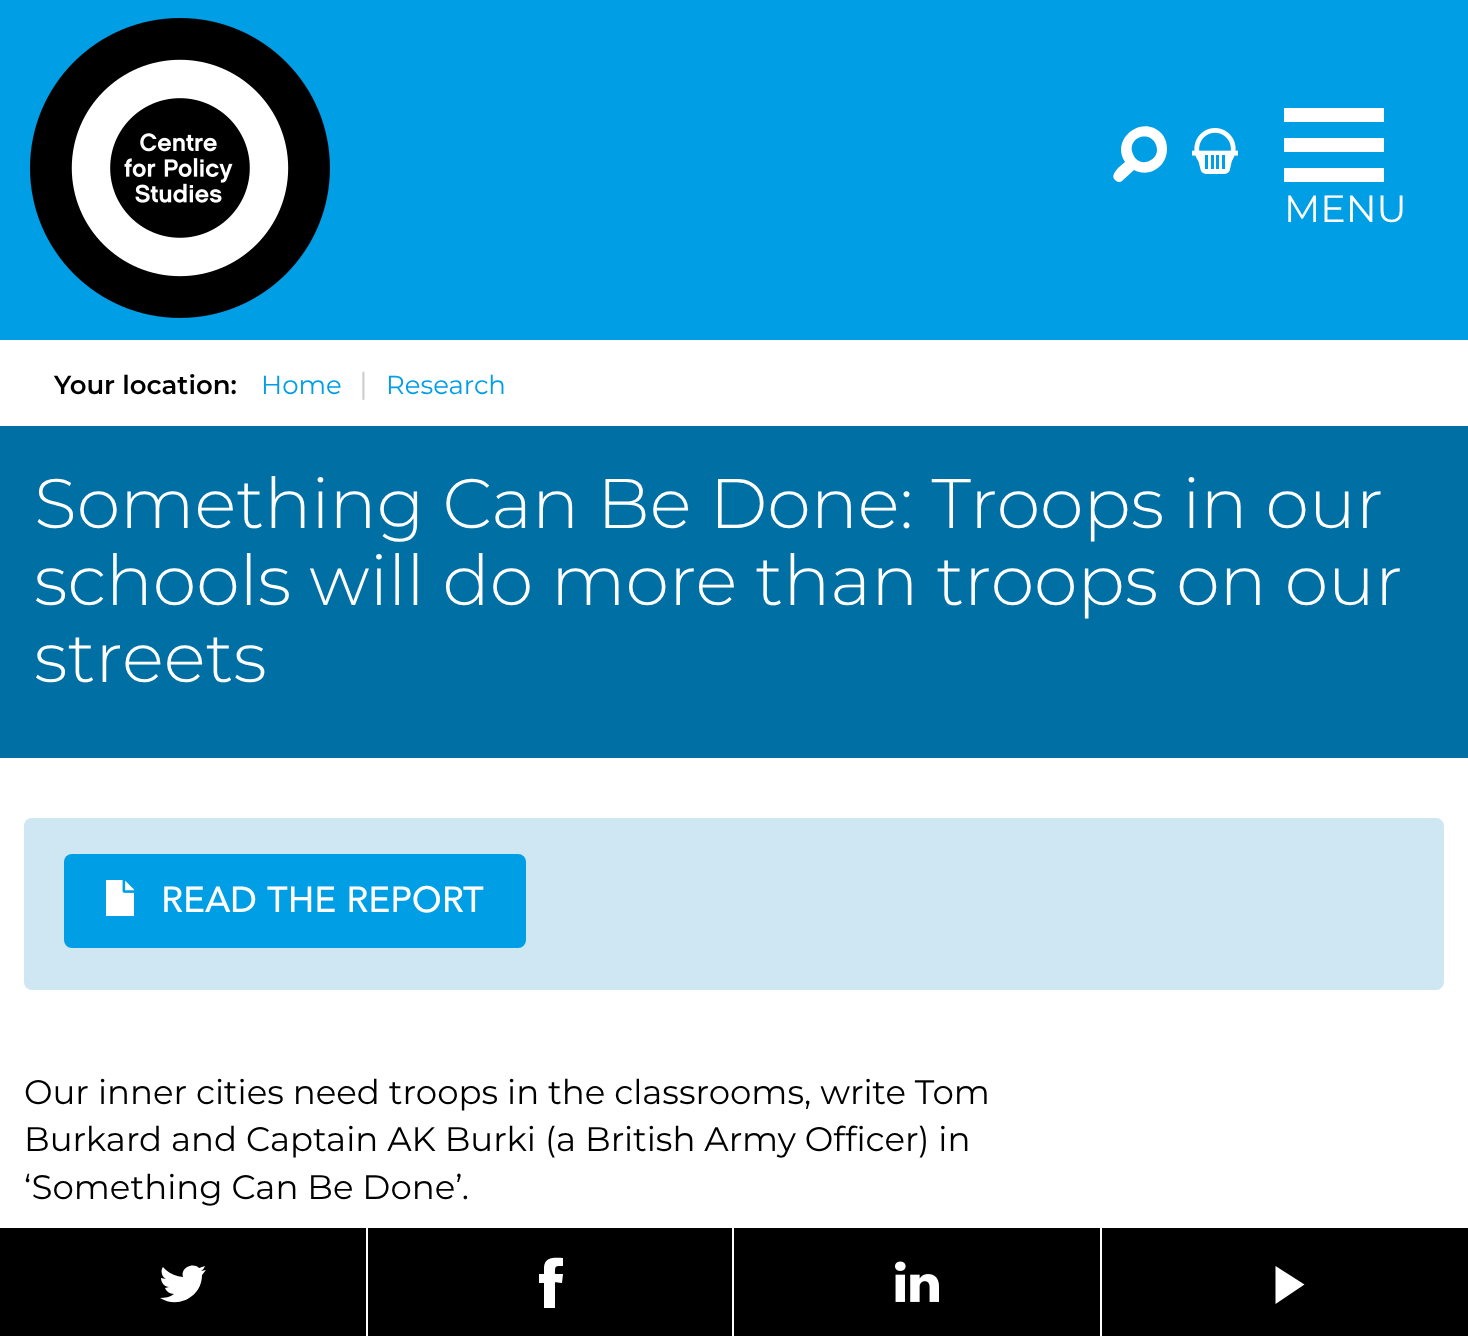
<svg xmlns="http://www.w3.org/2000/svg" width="1468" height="1337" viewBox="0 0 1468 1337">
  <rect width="100%" height="100%" fill="#fff"/>
  <path d="M0 0h1468v340H0z" fill="#009ee5"/>
  <image x="30" y="18" width="300" height="300" href="img/1.png"/>
  <path d="M1156 145C1162 160 1139 170 1133 154C1126 138 1150 129 1156 145ZM1167 149C1167 143 1165 137 1161 133C1142 114 1110 139 1125 162L1118 168C1115 172 1111 176 1115 180C1117 182 1120 183 1122 181L1134 170C1149 178 1167 167 1167 149Z" fill="#fff"/>
  <image x="1192" y="128" width="46" height="46" href="img/2.png"/>
  <path d="M1284 108h100v14H1284z" fill="#fff"/>
  <path d="M1284 138h100v14H1284z" fill="#fff"/>
  <path d="M1284 168h100v14H1284z" fill="#fff"/>
  <path d="M0 426h1468v332H0z" fill="#006fa4"/>
  <rect x="24" y="818" width="1420" height="172" rx="8" fill="#cee7f3"/>
  <rect x="64" y="854" width="462" height="94" rx="8" fill="#009ee5"/>
  <image x="106" y="880" width="28" height="36" href="img/3.png"/>
  <path d="M0 1228h366v108H0z" fill="#000"/>
  <path d="M202 1275C202 1297 178 1309 160 1298C165 1298 170 1297 174 1294C170 1294 166 1291 165 1288L169 1287C165 1287 161 1283 161 1278L166 1279C162 1277 160 1271 163 1267C168 1273 175 1276 183 1277C180 1268 193 1262 199 1268L205 1266C204 1268 203 1270 201 1271L206 1270Z" fill="#fff"/>
  <path d="M368 1228h364v108H368z" fill="#000"/>
  <path d="M563 1258V1266C557 1266 555 1265 555 1271C555 1274 554 1274 557 1274H563L562 1283C554 1283 555 1280 555 1287V1308H544V1283H539V1274H544V1267C545 1256 556 1258 563 1258Z" fill="#fff"/>
  <path d="M734 1228h366v108H734z" fill="#000"/>
  <image x="895" y="1261" width="44" height="41" href="img/4.png"/>
  <path d="M1102 1228h366v108H1102z" fill="#000"/>
  <path d="M1275.5 1304V1266L1304.5 1284.5Z" fill="#fff"/>
  <text x="1284" y="222" font-family="Montserrat" font-size="38" fill="#fff">MENU</text>
  <text x="54" y="394" font-family="Montserrat" font-size="26" font-weight="600" fill="#000">Your location:</text>
  <text x="261" y="394" font-family="Montserrat" font-size="26" fill="#009ee5">Home</text>
  <text x="359" y="394" font-family="Montserrat" font-size="30" fill="#ccc">|</text>
  <text x="386" y="394" font-family="Montserrat" font-size="26" fill="#009ee5">Research</text>
  <g font-family="Montserrat" font-size="70" font-weight="300" fill="#fff">
    <text x="34" y="528">Something Can Be Done: Troops in our</text>
    <text x="34" y="605">schools will do more than troops on our</text>
    <text x="34" y="682">streets</text>
  </g>
  <text x="161" y="912" font-family="'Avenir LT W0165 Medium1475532'" font-size="36" font-weight="500" fill="#fff">READ THE REPORT</text>
  <g font-family="Montserrat" font-size="34" fill="#000">
    <text x="24" y="1104">Our inner cities need troops in the classrooms, write Tom</text>
    <text x="24" y="1151">Burkard and Captain AK Burki (a British Army Officer) in</text>
    <text x="24" y="1199">‘Something Can Be Done’.</text>
  </g>
</svg>
